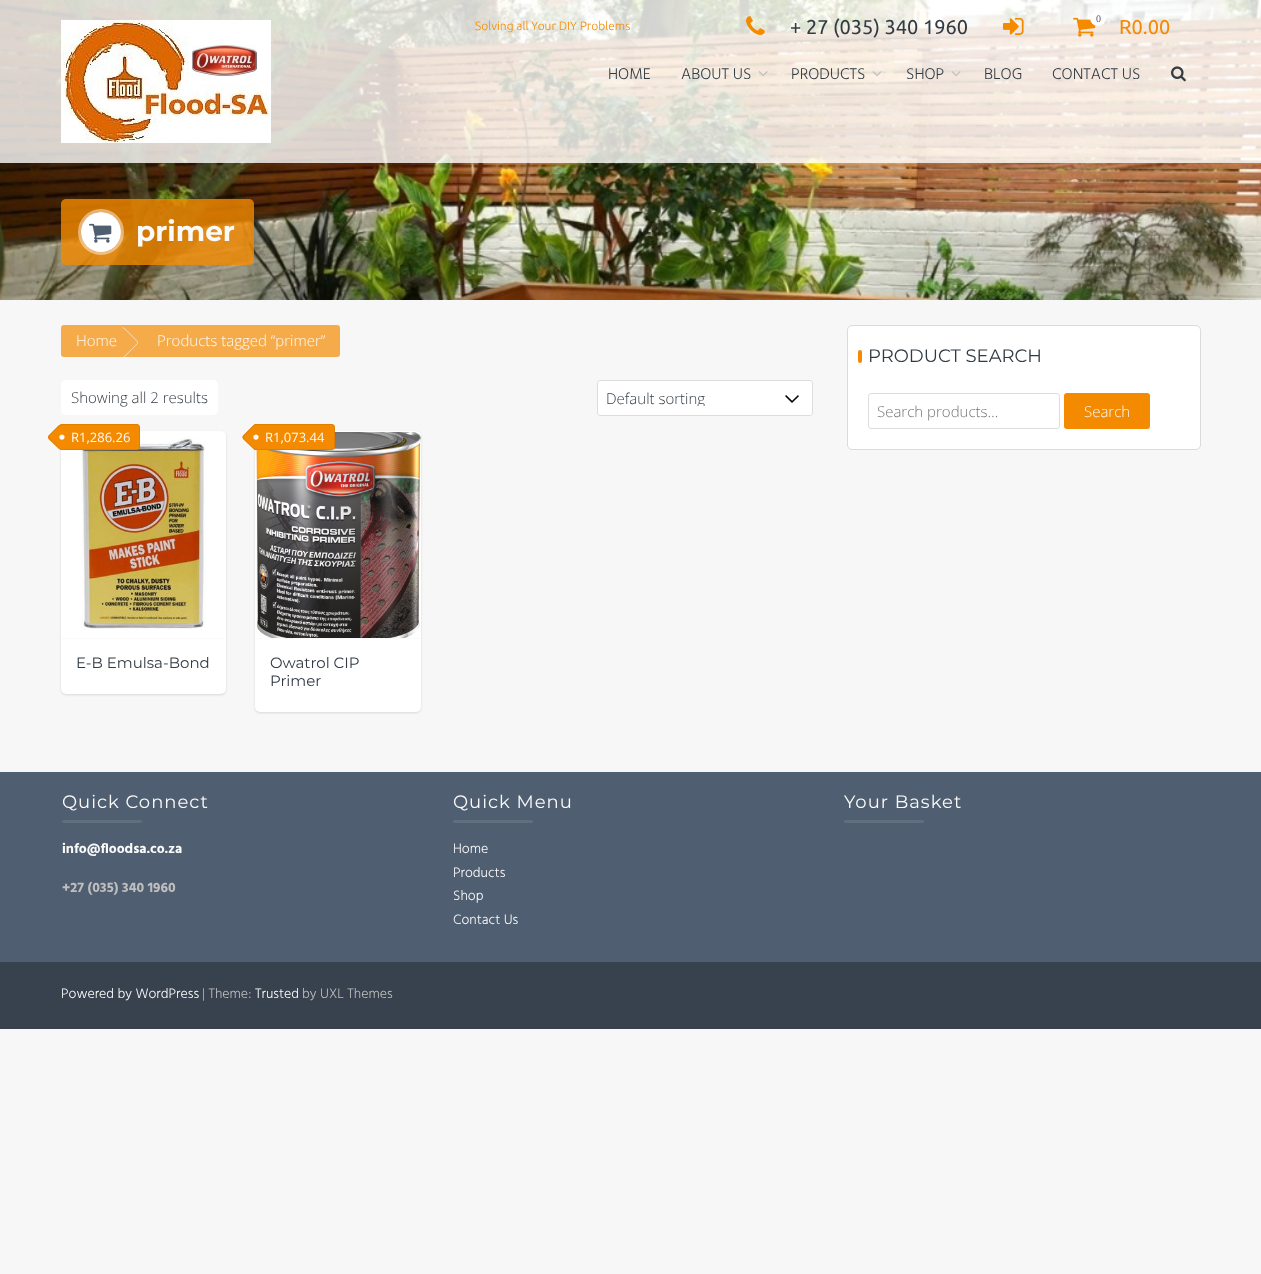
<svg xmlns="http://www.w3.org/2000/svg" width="1261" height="1274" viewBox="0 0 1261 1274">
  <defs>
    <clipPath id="clip1"><path d="M606 391h166v15H606z"/></clipPath>
  </defs>
  <rect width="100%" height="100%" fill="#f7f7f7"/>
  <image x="0" y="0" width="1261" height="300" href="img/9.png"/>
  <path d="M0 0h1261v163H0z" fill="#ffffffcc"/>
  <image x="61" y="20" width="210" height="123" href="img/1.png"/>
  <image x="746" y="16" width="19" height="19" href="img/2.png"/>
  <image x="1003" y="17" width="21" height="18" href="img/3.png"/>
  <image x="1073" y="17" width="23" height="20" href="img/4.png"/>
  <circle cx="1098" cy="18" r="8" fill="#fff"/>
  <image x="758" y="71" width="10" height="6" href="img/5.png"/>
  <image x="872" y="71" width="10" height="6" href="img/6.png"/>
  <image x="951" y="71" width="10" height="6" href="img/7.png"/>
  <image x="1171" y="66" width="15" height="16" href="img/8.png"/>
  <rect x="61" y="199" width="193" height="66" rx="5" fill="#f48a00cc"/>
  <circle cx="101" cy="232" r="21.5" fill="none" stroke="#ffffff73" stroke-width="3"/>
  <circle cx="101" cy="232" r="20" fill="#fff"/>
  <image x="89" y="223" width="23" height="20" href="img/10.png"/>
  <rect x="61" y="325" width="279" height="32" rx="3" fill="#f5ab4a"/>
  <path d="M125 328.5L137 340.5C138.5 341.5 138.5 343.5 137 344.5L125 356.5C124 358 122 358 121 356.5L109 344.5C108 343.5 108 341.5 109 340.5L121 328.5C122 327 124 327 125 328.5ZM124.5 329L136.5 341C137.5 342 137.5 343 136.5 344L124.5 356C123.5 357 121.5 357.5 121 356.5L109 344.5C108 343.5 108 341.5 109 340.5L121 328.5C121.5 327.5 123.5 328 124.5 329Z" fill="#ffffff99" fill-rule="evenodd"/>
  <rect x="61" y="380" width="157" height="35" rx="5" fill="#fff"/>
  <rect x="597" y="380" width="216" height="36" rx="3" fill="#fff"/>
  <image x="785" y="395" width="14" height="8" href="img/11.png"/>
  <rect x="597.5" y="380.5" width="215" height="35" rx="2.5" fill="none" stroke="#ddd"/>
  <rect x="61" y="432" width="165" height="263" rx="5" fill="#0000001f" filter="blur(1px)"/>
  <rect x="61" y="431" width="165" height="263" rx="5" fill="#fff"/>
  <image x="81" y="438" width="125" height="192" href="img/12.png"/>
  <path d="M61 424H137C138.5 424 140 425.5 140 427V447C140 448.5 138.5 450 137 450H61C60.5 450 60 449.5 60 449V425C60 424.5 60.5 424 61 424Z" fill="#f48a00"/>
  <path d="M61 424.5H137C138.5 424.5 139.5 425.5 139.5 427V447C139.5 448.5 138.5 449.5 137 449.5H61C60.5 449.5 60.5 449.5 60.5 449V425C60.5 424.5 60.5 424.5 61 424.5Z" fill="none" stroke="#00000014"/>
  <path d="M61 638h165v1H61z" fill="#fafafa"/>
  <rect x="255" y="432" width="166" height="281" rx="5" fill="#0000001f" filter="blur(1px)"/>
  <rect x="255" y="431" width="166" height="281" rx="5" fill="#fff"/>
  <image x="256" y="432" width="165" height="206" href="img/13.png"/>
  <path d="M255 424H332C333.5 424 335 425.5 335 427V447C335 448.5 333.5 450 332 450H255C254.5 450 254 449.5 254 449V425C254 424.5 254.5 424 255 424Z" fill="#f48a00"/>
  <path d="M255 424.5H332C333.5 424.5 334.5 425.5 334.5 427V447C334.5 448.5 333.5 449.5 332 449.5H255C254.5 449.5 254.5 449.5 254.5 449V425C254.5 424.5 254.5 424.5 255 424.5Z" fill="none" stroke="#00000014"/>
  <path d="M255 638h166v1H255z" fill="#fafafa"/>
  <rect x="847.5" y="325.5" width="353" height="124" rx="4.5" fill="#fff" stroke="#dbdbdb"/>
  <rect x="858" y="350" width="4" height="13" rx="2" fill="#f48a00"/>
  <rect x="868.5" y="393.5" width="191" height="35" rx="2.5" fill="none" stroke="#ddd"/>
  <rect x="1064" y="393" width="86" height="36" rx="3" fill="#f48a00"/>
  <path d="M0 772h1261v190H0z" fill="#4f5e70"/>
  <rect x="62" y="820" width="80" height="3" rx="1.5" fill="#616e7e"/>
  <rect x="453" y="820" width="80" height="3" rx="1.5" fill="#616e7e"/>
  <rect x="844" y="820" width="80" height="3" rx="1.5" fill="#616e7e"/>
  <path d="M0 962h1261v67H0z" fill="#37424e"/>
  <text x="475" y="30" font-family="Ubuntu" font-size="12" font-weight="300" fill="#f48a00">Solving all Your DIY Problems</text>
  <text x="790" y="34" font-family="Ubuntu" font-size="20" fill="#323b44">+ 27 (035) 340 1960</text>
  <text x="1096" y="22" font-family="Liberation Serif" font-size="10" fill="#4f5e70">0</text>
  <text x="1119" y="34" font-family="Ubuntu" font-size="20" fill="#f48a00">R0.00</text>
  <g font-family="Hind" font-size="16" font-weight="300" fill="#323b44">
    <text x="608" y="79">HOME</text>
    <text x="681" y="79">ABOUT US</text>
    <text x="791" y="79">PRODUCTS</text>
    <text x="906" y="79">SHOP</text>
    <text x="984" y="79">BLOG</text>
    <text x="1052" y="79">CONTACT US</text>
  </g>
  <text x="136" y="241" font-family="Montserrat" font-size="28" font-weight="bold" fill="#fafafa">primer</text>
  <g font-family="Open Sans" font-size="15" font-weight="300" fill="#fafafa">
    <text x="76" y="346">Home</text>
    <text x="157" y="346">Products tagged “primer”</text>
  </g>
  <text x="71" y="403" font-family="Open Sans" font-size="15" font-weight="300" fill="#323b44">Showing all 2 results</text>
  <g clip-path="url(#clip1)">
    <text x="606" y="404" font-family="Open Sans" font-size="15" font-weight="300" fill="#323b44">Default sorting</text>
  </g>
  <text x="71" y="442" font-family="Open Sans" font-size="13" fill="#fafafa">R1,286.26</text>
  <path d="M60 425L72 437L60 449C60 449.5 59 449.5 59 449L49 439.5C47.5 438 47.5 436 49 435L59 425C59 425 60 425 60 425Z" fill="#f48a00"/>
  <path d="M60 425L72 437L60 449C60 449.5 59 449.5 59 449L49 439.5C47.5 438 47.5 436 49 435L59 425C59 425 60 425 60 425ZM60 425L72 437L60 449L51.5 440.5C47.5 436.5 49 436 53 432.5Z" fill="#0000001a" fill-rule="evenodd"/>
  <text x="57" y="437" transform="rotate(45 57 437)" font-family="Liberation Sans" font-size="12" fill="#fafafa">●</text>
  <text x="76" y="668" font-family="Montserrat" font-size="15" fill="#323b44">E-B Emulsa-Bond</text>
  <text x="265" y="442" font-family="Open Sans" font-size="13" fill="#fafafa">R1,073.44</text>
  <path d="M254.5 425L266.5 437L254.5 449C254.5 449.5 253.5 449.5 253.5 449L243.5 439.5C242 438 242 436 243.5 435L253.5 425C253.5 425 254.5 425 254.5 425Z" fill="#f48a00"/>
  <path d="M254.5 425L266.5 437L254.5 449C254.5 449.5 253.5 449.5 253.5 449L243.5 439.5C242 438 242 436 243.5 435L253.5 425C253.5 425 254.5 425 254.5 425ZM254.5 425L266.5 437L254.5 449L245.5 440.5C242 436.5 243.5 436 247.5 432.5Z" fill="#0000001a" fill-rule="evenodd"/>
  <text x="251" y="437" transform="rotate(45 251 437)" font-family="Liberation Sans" font-size="12" fill="#fafafa">●</text>
  <g font-family="Montserrat" font-size="15" fill="#323b44">
    <text x="270" y="668">Owatrol CIP</text>
    <text x="270" y="686">Primer</text>
  </g>
  <text x="868" y="362" font-family="Montserrat" font-size="18" fill="#323b44">PRODUCT SEARCH</text>
  <text x="877" y="417" font-family="Open Sans" font-size="15" font-weight="300" fill="#757575">Search products…</text>
  <text x="1084" y="417" font-family="Open Sans" font-size="15" font-weight="300" fill="#fafafa">Search</text>
  <text x="62" y="808" font-family="Montserrat" font-size="18" letter-spacing="1" fill="#fafafa">Quick Connect</text>
  <text x="62" y="853" font-family="Hind" font-size="14" font-weight="bold" fill="#fafafa">info@floodsa.co.za</text>
  <text x="62" y="892" font-family="Hind" font-size="14" font-weight="bold" fill="#bebebe">+27 (035) 340 1960</text>
  <text x="453" y="808" font-family="Montserrat" font-size="18" letter-spacing="1" fill="#fafafa">Quick Menu</text>
  <g font-family="Hind" font-size="14" font-weight="300" fill="#fafafa">
    <text x="453" y="853">Home</text>
    <text x="453" y="877">Products</text>
    <text x="453" y="900">Shop</text>
    <text x="453" y="924">Contact Us</text>
  </g>
  <text x="844" y="808" font-family="Montserrat" font-size="18" letter-spacing="1" fill="#fafafa">Your Basket</text>
  <text x="61" y="998" font-family="Hind" font-size="14" font-weight="300" fill="#fafafa">Powered by WordPress</text>
  <text x="202" y="998" font-family="Hind" font-size="14" font-weight="300" fill="#bebebe">| Theme:</text>
  <text x="255" y="998" font-family="Hind" font-size="14" font-weight="300" fill="#fafafa">Trusted</text>
  <text x="302" y="998" font-family="Hind" font-size="14" font-weight="300" fill="#bebebe">by UXL Themes</text>
</svg>
